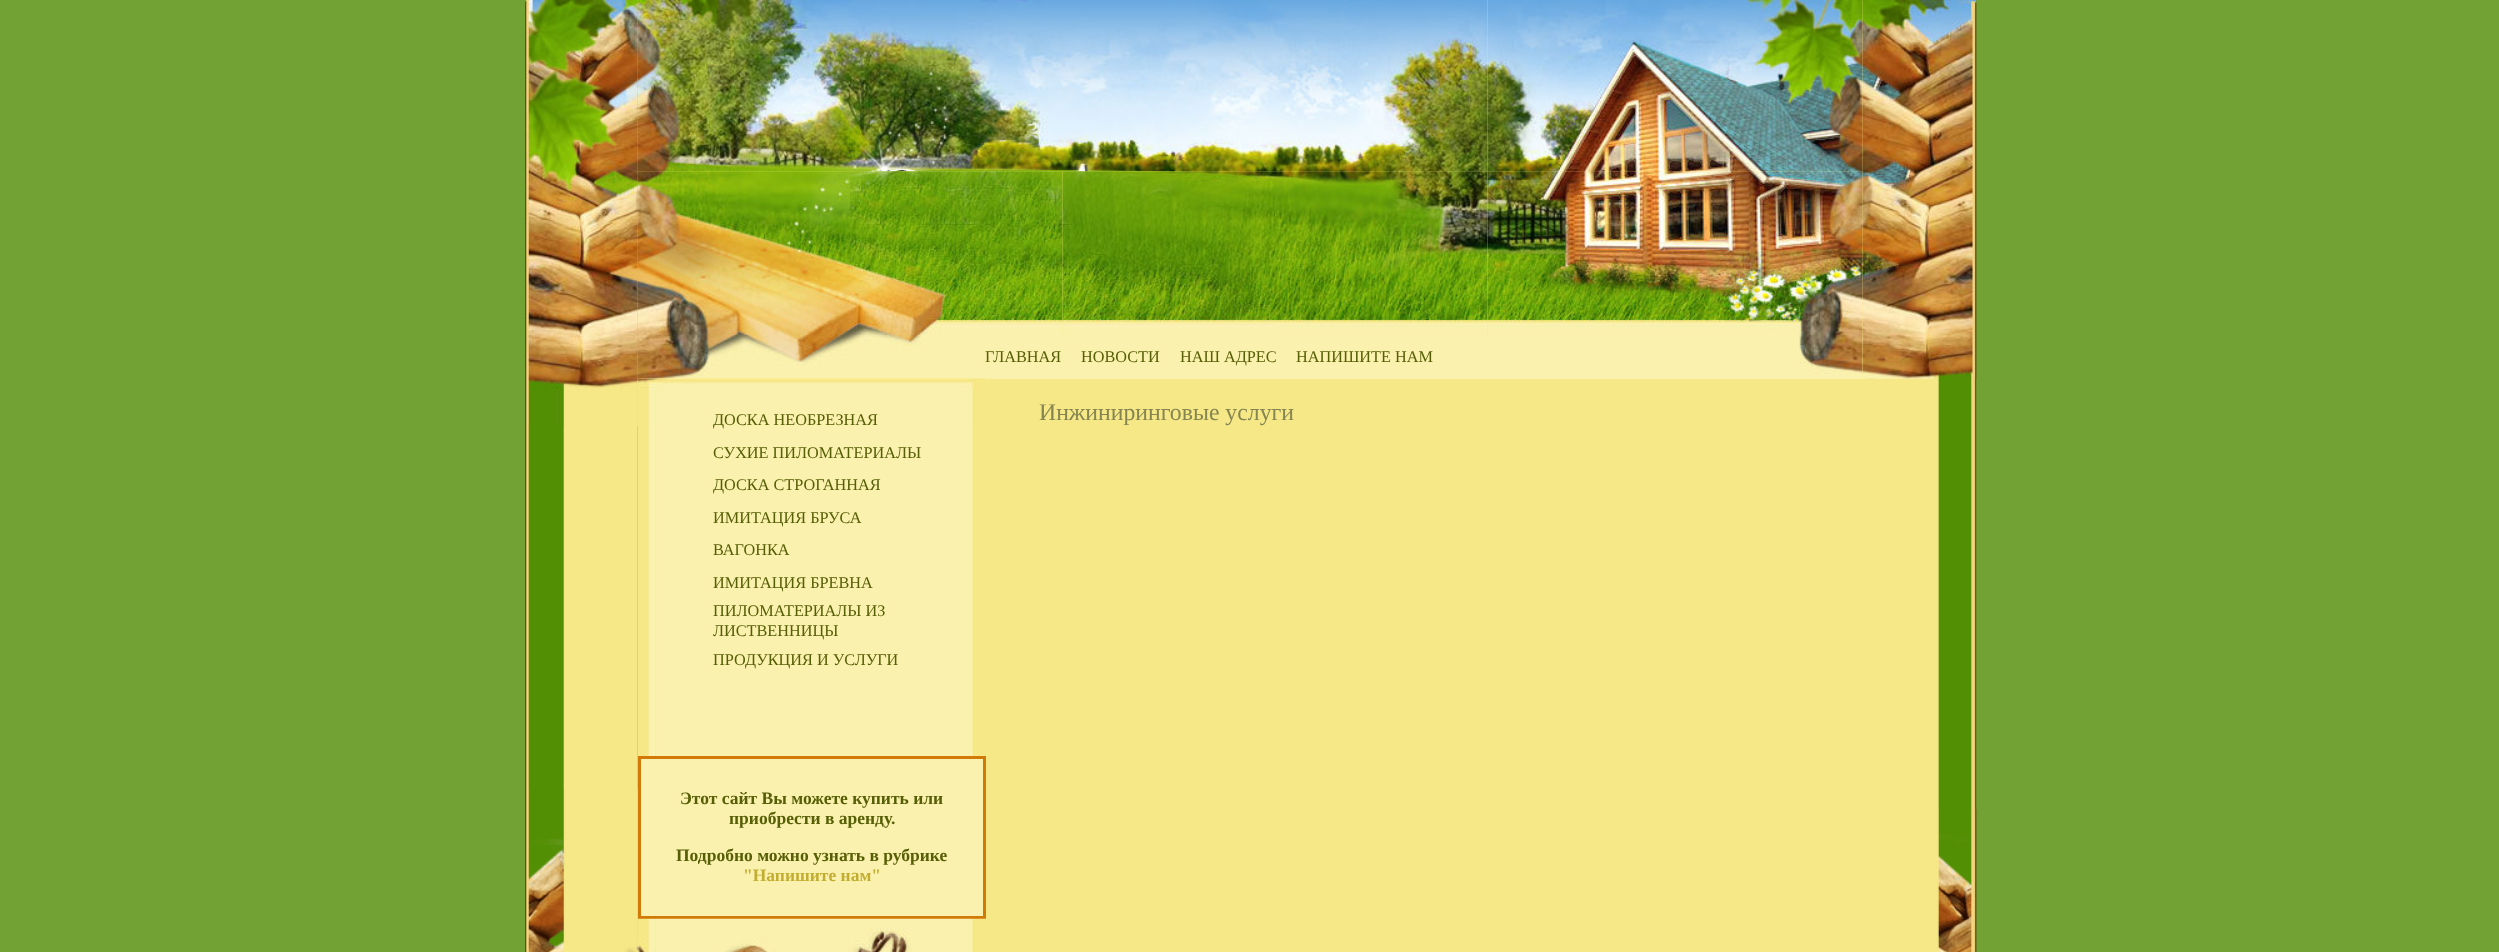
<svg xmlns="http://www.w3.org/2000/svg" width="2499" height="952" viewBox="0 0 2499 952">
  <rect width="100%" height="100%" fill="#71a233"/>
  <image x="525" y="0" width="113" height="952" href="img/1.png"/>
  <image x="525" y="0" width="113" height="427" href="img/2.png"/>
  <image x="528" y="788" width="110" height="164" href="img/3.png"/>
  <path d="M638 0h1225v952H638z" fill="#f7e887"/>
  <image x="637" y="0" width="851" height="172" href="img/4.png"/>
  <path d="M638 335h1225v44H638z" fill="#faf1ae"/>
  <image x="1799" y="335" width="64" height="40" href="img/12.png"/>
  <image x="1862" y="0" width="115" height="952" href="img/17.png"/>
  <image x="1862" y="0" width="115" height="379" href="img/18.png"/>
  <image x="1487" y="0" width="376" height="172" href="img/5.png"/>
  <image x="637" y="171" width="213" height="164" href="img/6.png"/>
  <image x="850" y="171" width="213" height="164" href="img/7.png"/>
  <image x="1062" y="171" width="213" height="164" href="img/8.png"/>
  <image x="1275" y="171" width="213" height="164" href="img/9.png"/>
  <image x="1487" y="171" width="376" height="164" href="img/10.png"/>
  <image x="637" y="335" width="285" height="44" href="img/11.png"/>
  <image x="637" y="378" width="349" height="49" href="img/13.png"/>
  <image x="637" y="378" width="349" height="574" href="img/14.png"/>
  <image x="637" y="378" width="349" height="48" href="img/15.png"/>
  <path d="M639.5 757.5h345v160H639.5z" fill="#faf1ae" stroke="#d17a08" stroke-width="3"/>
  <image x="637" y="918" width="349" height="34" href="img/16.png"/>
  <image x="1937" y="809" width="40" height="143" href="img/19.png"/>
  <g font-family="Liberation Serif" font-size="16.25" fill="#575f06">
    <text x="985" y="362">ГЛАВНАЯ</text>
    <text x="1081" y="362">НОВОСТИ</text>
    <text x="1180" y="362">НАШ АДРЕС</text>
    <text x="1296" y="362">НАПИШИТЕ НАМ</text>
    <text x="713" y="425">ДОСКА НЕОБРЕЗНАЯ</text>
    <text x="713" y="458">СУХИЕ ПИЛОМАТЕРИАЛЫ</text>
    <text x="713" y="490">ДОСКА СТРОГАННАЯ</text>
    <text x="713" y="523">ИМИТАЦИЯ БРУСА</text>
    <text x="713" y="555">ВАГОНКА</text>
    <text x="713" y="588">ИМИТАЦИЯ БРЕВНА</text>
    <text x="713" y="616">ПИЛОМАТЕРИАЛЫ ИЗ</text>
    <text x="713" y="636">ЛИСТВЕННИЦЫ</text>
    <text x="713" y="665">ПРОДУКЦИЯ И УСЛУГИ</text>
  </g>
  <g font-family="Liberation Serif" font-size="17.5" font-weight="bold" fill="#575f06">
    <text x="680" y="804">Этот сайт Вы можете купить или</text>
    <text x="729" y="824">приобрести в аренду.</text>
    <text x="676" y="861">Подробно можно узнать в рубрике</text>
  </g>
  <text x="743" y="881" font-family="Liberation Serif" font-size="17.5" font-weight="bold" fill="#c1ae31">"Напишите нам"</text>
  <text x="1039" y="420" font-family="Liberation Serif" font-size="23.75" fill="#858551">Инжиниринговые услуги</text>
</svg>
